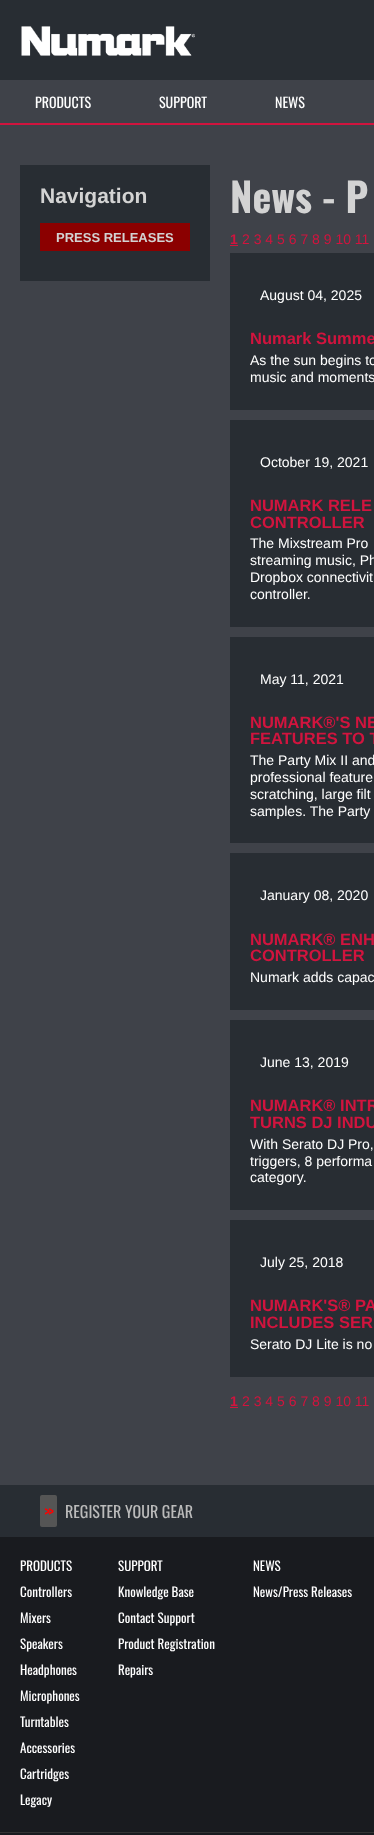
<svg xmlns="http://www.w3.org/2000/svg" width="374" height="1835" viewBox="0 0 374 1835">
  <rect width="100%" height="100%" fill="#282d33"/>
  <image x="21" y="26" width="174" height="30" href="img/1.png"/>
  <path d="M0 80h374v43H0z" fill="#3f4249"/>
  <path d="M0 123h374v2H0z" fill="#d1143e"/>
  <path d="M0 125h374v1360H0z" fill="#3f4249"/>
  <path d="M20 165h190v116H20z" fill="#282d33"/>
  <path d="M40 223h150v28H40z" fill="#8b0000"/>
  <path d="M230 245h8v1H230z" fill="#d1143e"/>
  <path d="M230 253h144v157H230z" fill="#282d33"/>
  <path d="M230 420h144v207H230z" fill="#282d33"/>
  <path d="M230 637h144v206H230z" fill="#282d33"/>
  <path d="M230 853h144v157H230z" fill="#282d33"/>
  <path d="M230 1020h144v190H230z" fill="#282d33"/>
  <path d="M230 1220h144v157H230z" fill="#282d33"/>
  <path d="M230 1407h8v1H230z" fill="#d1143e"/>
  <path d="M0 1537h374v298H0z" fill="#191b1f"/>
  <rect x="40" y="1495" width="17" height="32" rx="2" fill="#555"/>
  <path d="M0 1832h374v1H0z" fill="#333"/>
  <g font-family="Oswald" font-size="14" fill="#fff">
    <text x="35" y="108">PRODUCTS</text>
    <text x="159" y="108">SUPPORT</text>
    <text x="275" y="108">NEWS</text>
  </g>
  <text x="40" y="203" font-family="Liberation Sans" font-size="21" font-weight="bold" fill="#d3d3d3">Navigation</text>
  <text x="56" y="242" font-family="Liberation Sans" font-size="13" font-weight="bold" fill="#d3d3d3">PRESS RELEASES</text>
  <text x="230" y="213" font-family="Oswald" font-size="40" font-weight="bold" fill="#d3d3d3">News - P</text>
  <text x="230" y="244" font-family="Liberation Sans" font-size="14" font-weight="bold" fill="#d1143e">1</text>
  <text x="242" y="244" font-family="Liberation Sans" font-size="14" fill="#d1143e">2 3 4 5 6 7 8 9 10 11</text>
  <text x="260" y="300" font-family="Liberation Sans" font-size="14" fill="#fff">August 04, 2025</text>
  <text x="250" y="344" font-family="Liberation Sans" font-size="16.5" font-weight="bold" fill="#d1143e">Numark Summe</text>
  <g font-family="Liberation Sans" font-size="14" fill="#fff">
    <text x="250" y="365">As the sun begins to</text>
    <text x="250" y="382">music and moments</text>
    <text x="260" y="467">October 19, 2021</text>
  </g>
  <g font-family="Liberation Sans" font-size="16.5" font-weight="bold" fill="#d1143e">
    <text x="250" y="511">NUMARK RELE</text>
    <text x="250" y="528">CONTROLLER</text>
  </g>
  <g font-family="Liberation Sans" font-size="14" fill="#fff">
    <text x="250" y="548">The Mixstream Pro</text>
    <text x="250" y="565">streaming music, Ph</text>
    <text x="250" y="582">Dropbox connectivit</text>
    <text x="250" y="599">controller.</text>
    <text x="260" y="684">May 11, 2021</text>
  </g>
  <g font-family="Liberation Sans" font-size="16.5" font-weight="bold" fill="#d1143e">
    <text x="250" y="728">NUMARK®'S NE</text>
    <text x="250" y="744">FEATURES TO T</text>
  </g>
  <g font-family="Liberation Sans" font-size="14" fill="#fff">
    <text x="250" y="765">The Party Mix II and</text>
    <text x="250" y="782">professional feature</text>
    <text x="250" y="799">scratching, large filt</text>
    <text x="250" y="816">samples. The Party</text>
    <text x="260" y="900">January 08, 2020</text>
  </g>
  <g font-family="Liberation Sans" font-size="16.5" font-weight="bold" fill="#d1143e">
    <text x="250" y="945">NUMARK® ENH</text>
    <text x="250" y="961">CONTROLLER</text>
  </g>
  <g font-family="Liberation Sans" font-size="14" fill="#fff">
    <text x="250" y="982">Numark adds capac</text>
    <text x="260" y="1067">June 13, 2019</text>
  </g>
  <g font-family="Liberation Sans" font-size="16.5" font-weight="bold" fill="#d1143e">
    <text x="250" y="1111">NUMARK® INTR</text>
    <text x="250" y="1128">TURNS DJ INDU</text>
  </g>
  <g font-family="Liberation Sans" font-size="14" fill="#fff">
    <text x="250" y="1149">With Serato DJ Pro,</text>
    <text x="250" y="1166">triggers, 8 performa</text>
    <text x="250" y="1182">category.</text>
    <text x="260" y="1267">July 25, 2018</text>
  </g>
  <g font-family="Liberation Sans" font-size="16.5" font-weight="bold" fill="#d1143e">
    <text x="250" y="1311">NUMARK'S® PA</text>
    <text x="250" y="1328">INCLUDES SER</text>
  </g>
  <text x="250" y="1349" font-family="Liberation Sans" font-size="14" fill="#fff">Serato DJ Lite is no</text>
  <text x="230" y="1406" font-family="Liberation Sans" font-size="14" font-weight="bold" fill="#d1143e">1</text>
  <text x="242" y="1406" font-family="Liberation Sans" font-size="14" fill="#d1143e">2 3 4 5 6 7 8 9 10 11</text>
  <text x="44" y="1518" font-family="Oswald" font-size="16" letter-spacing="-2" fill="#f00">&gt;&gt;</text>
  <text x="65" y="1518" font-family="Oswald" font-size="16" fill="#bbb">REGISTER YOUR GEAR</text>
  <g font-family="Oswald" font-size="13" fill="#fff">
    <text x="20" y="1571">PRODUCTS</text>
    <text x="20" y="1597">Controllers</text>
    <text x="20" y="1623">Mixers</text>
    <text x="20" y="1649">Speakers</text>
    <text x="20" y="1675">Headphones</text>
    <text x="20" y="1701">Microphones</text>
    <text x="20" y="1727">Turntables</text>
    <text x="20" y="1753">Accessories</text>
    <text x="20" y="1779">Cartridges</text>
    <text x="20" y="1805">Legacy</text>
    <text x="118" y="1571">SUPPORT</text>
    <text x="118" y="1597">Knowledge Base</text>
    <text x="118" y="1623">Contact Support</text>
    <text x="118" y="1649">Product Registration</text>
    <text x="118" y="1675">Repairs</text>
    <text x="253" y="1571">NEWS</text>
    <text x="253" y="1597">News/Press Releases</text>
  </g>
</svg>
